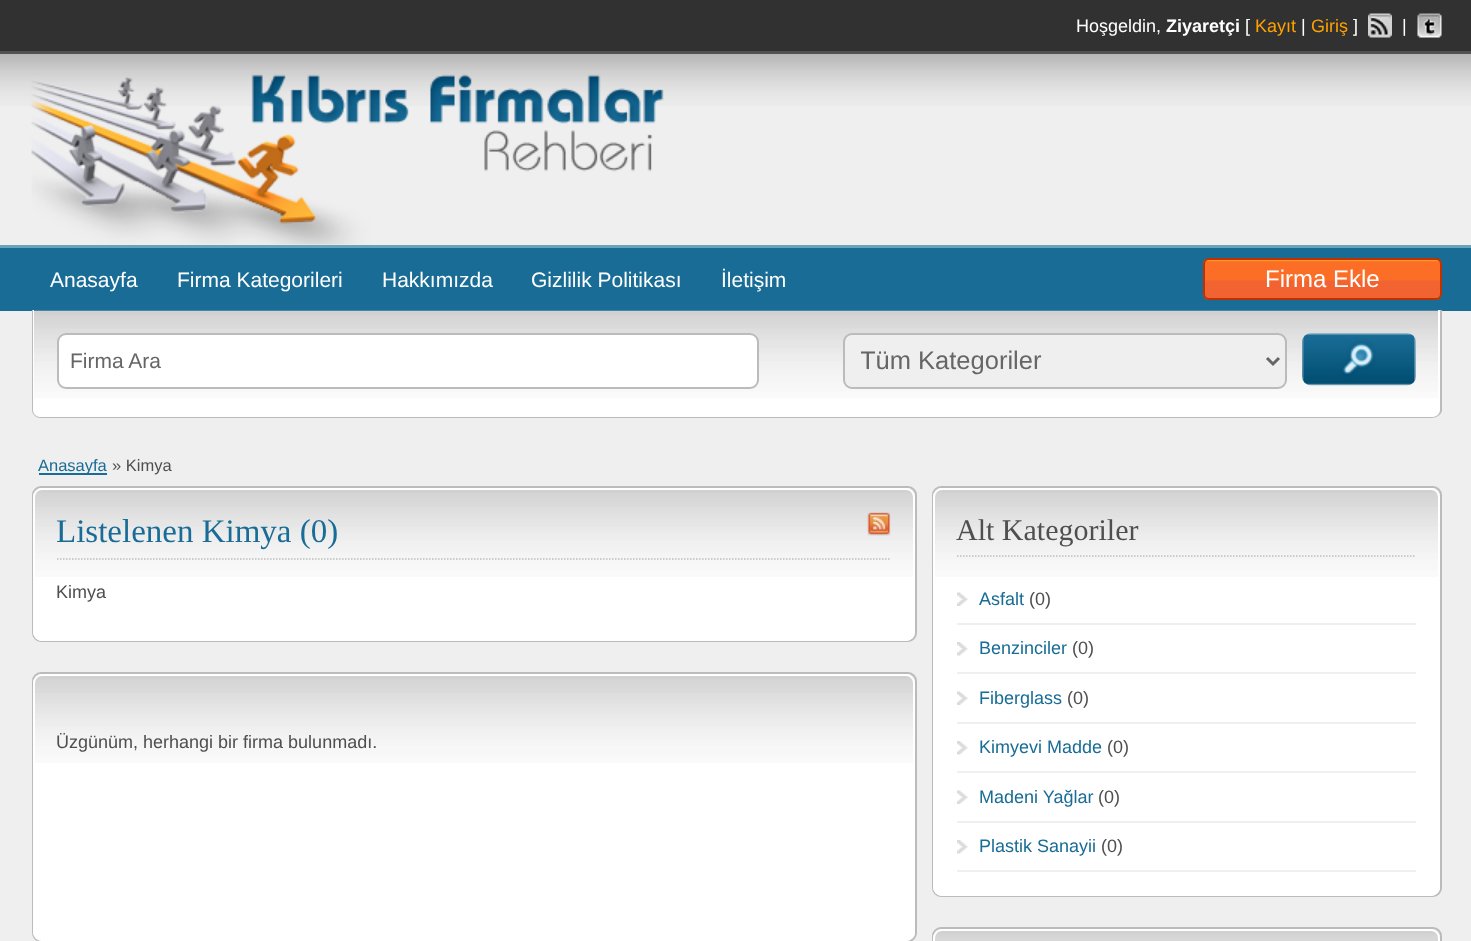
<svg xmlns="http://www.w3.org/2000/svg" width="1471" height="941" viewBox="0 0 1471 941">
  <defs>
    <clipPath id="clip1"><path d="M861 345h390v32H861z"/></clipPath>
  </defs>
  <rect width="100%" height="100%" fill="#efefef"/>
  <path d="M0 0h1471v51H0z" fill="#313131"/>
  <path d="M0 51h1471v3H0z" fill="#515150"/>
  <image x="1368" y="13" width="24" height="25" href="img/1.png"/>
  <image x="1417" y="13" width="25" height="25" href="img/2.png"/>
  <image x="0" y="54" width="1471" height="52" href="img/3.png"/>
  <image x="31" y="74" width="633" height="171" href="img/4.png"/>
  <path d="M0 248h1471v63H0z" fill="#186c95"/>
  <path d="M0 245h1471v3H0z" fill="#68a4b9"/>
  <image x="1203" y="259" width="239" height="41" href="img/5.png"/>
  <rect x="1204" y="259" width="237" height="40" rx="5" fill="none" stroke="#be3101" stroke-width="2"/>
  <path d="M32 310H1442V410C1442 414 1437 418 1432 418H40C36 418 32 414 32 410ZM33 310H1440V410C1440 414 1437 417 1432 417H40C36 417 33 414 33 410Z" fill="#bbb" fill-rule="evenodd"/>
  <path d="M33 311H1440V408C1440 413 1436 417 1431 417H42C37 417 33 413 33 408Z" fill="#fff"/>
  <image x="34" y="310" width="1404" height="88" href="img/6.png"/>
  <path d="M33 310H1440V408C1440 413 1436 417 1431 417H42C37 417 33 413 33 408ZM34 310H1438V408C1438 412 1435 416 1431 416H42C38 416 34 412 34 408Z" fill="#fff" fill-rule="evenodd"/>
  <rect x="58" y="334" width="700" height="54" rx="8" fill="#fff" stroke="#bbb" stroke-width="2"/>
  <rect x="844" y="334" width="442" height="54" rx="8" fill="#efefef" stroke="#bbb" stroke-width="2"/>
  <path d="M1267 358L1273 364L1279 358" fill="none" stroke="#666" stroke-width="3"/>
  <image x="1302" y="333" width="114" height="53" href="img/7.png"/>
  <path d="M39 473h68v2H39z" fill="#186c95"/>
  <rect x="33" y="487" width="883" height="154" rx="8" fill="none" stroke="#bbb" stroke-width="2"/>
  <rect x="33" y="488" width="882" height="153" rx="9" fill="#fff"/>
  <image x="33" y="489" width="882" height="88" href="img/8.png"/>
  <rect x="34" y="489" width="880" height="151" rx="8" fill="none" stroke="#fff" stroke-width="2"/>
  <path d="M57 559H891" fill="none" stroke="#bdbdbd" stroke-width="1.5" stroke-dasharray="1.5 1.5"/>
  <image x="867" y="512" width="24" height="24" href="img/9.png"/>
  <rect x="33" y="673" width="883" height="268" rx="8" fill="none" stroke="#bbb" stroke-width="2"/>
  <rect x="33" y="674" width="882" height="267" rx="9" fill="#fff"/>
  <image x="33" y="675" width="882" height="88" href="img/8.png"/>
  <rect x="34" y="675" width="880" height="265" rx="8" fill="none" stroke="#fff" stroke-width="2"/>
  <rect x="933" y="487" width="508" height="409" rx="8" fill="none" stroke="#bbb" stroke-width="2"/>
  <rect x="933" y="488" width="507" height="408" rx="9" fill="#fff"/>
  <image x="933" y="489" width="507" height="88" href="img/10.png"/>
  <rect x="934" y="489" width="505" height="406" rx="8" fill="none" stroke="#fff" stroke-width="2"/>
  <path d="M957 556H1416" fill="none" stroke="#bdbdbd" stroke-width="1.5" stroke-dasharray="1.5 1.5"/>
  <image x="957" y="592" width="11" height="14" href="img/11.png"/>
  <path d="M957 623h459v2H957z" fill="#efefef"/>
  <image x="957" y="642" width="11" height="14" href="img/12.png"/>
  <path d="M957 672h459v2H957z" fill="#efefef"/>
  <image x="957" y="691" width="11" height="14" href="img/11.png"/>
  <path d="M957 722h459v2H957z" fill="#efefef"/>
  <image x="957" y="741" width="11" height="14" href="img/12.png"/>
  <path d="M957 771h459v2H957z" fill="#efefef"/>
  <image x="957" y="790" width="11" height="14" href="img/11.png"/>
  <path d="M957 821h459v2H957z" fill="#efefef"/>
  <image x="957" y="840" width="11" height="14" href="img/12.png"/>
  <path d="M957 870h459v2H957z" fill="#efefef"/>
  <rect x="933" y="928" width="508" height="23" rx="8" fill="none" stroke="#bbb" stroke-width="2"/>
  <image x="933" y="930" width="507" height="11" href="img/13.png"/>
  <rect x="934" y="930" width="505" height="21" rx="8" fill="none" stroke="#fff" stroke-width="2"/>
  <text x="1076" y="32" font-family="Liberation Sans" font-size="18" fill="#fff">Hoşgeldin,</text>
  <text x="1166" y="32" font-family="Liberation Sans" font-size="18" font-weight="bold" fill="#fff">Ziyaretçi</text>
  <text x="1245" y="32" font-family="Liberation Sans" font-size="18" fill="#fff">[</text>
  <text x="1255" y="32" font-family="Liberation Sans" font-size="18" fill="#ffa200">Kayıt</text>
  <text x="1301" y="32" font-family="Liberation Sans" font-size="18" fill="#fff">|</text>
  <text x="1311" y="32" font-family="Liberation Sans" font-size="18" fill="#ffa200">Giriş</text>
  <g font-family="Liberation Sans" font-size="18" fill="#fff">
    <text x="1353" y="32">]</text>
    <text x="1402" y="32">|</text>
  </g>
  <g font-family="Liberation Sans" font-size="21" fill="#fff">
    <text x="50" y="287">Anasayfa</text>
    <text x="177" y="287">Firma Kategorileri</text>
    <text x="382" y="287">Hakkımızda</text>
    <text x="531" y="287">Gizlilik Politikası</text>
    <text x="721" y="287">İletişim</text>
  </g>
  <text x="1265" y="287" font-family="Liberation Sans" font-size="24" fill="#fff">Firma Ekle</text>
  <text x="70" y="368" font-family="Liberation Sans" font-size="21" fill="#666">Firma Ara</text>
  <g clip-path="url(#clip1)">
    <text x="860" y="369" font-family="Liberation Sans" font-size="25.5" fill="#666">Tüm Kategoriler</text>
  </g>
  <text x="38" y="471" font-family="Liberation Sans" font-size="16.5" fill="#186c95">Anasayfa</text>
  <text x="112" y="471" font-family="Liberation Sans" font-size="16.5" fill="#4f4f4f">» Kimya</text>
  <text x="56" y="542" font-family="Liberation Serif" font-size="33" fill="#186c95">Listelenen Kimya (0)</text>
  <g font-family="Liberation Sans" font-size="18" fill="#4f4f4f">
    <text x="56" y="598">Kimya</text>
    <text x="56" y="748">Üzgünüm, herhangi bir firma bulunmadı.</text>
  </g>
  <text x="956" y="540" font-family="Liberation Serif" font-size="30" fill="#4f4f4f">Alt Kategoriler</text>
  <text x="979" y="605" font-family="Liberation Sans" font-size="18" fill="#186c95">Asfalt</text>
  <text x="1029" y="605" font-family="Liberation Sans" font-size="18" fill="#4f4f4f">(0)</text>
  <text x="979" y="654" font-family="Liberation Sans" font-size="18" fill="#186c95">Benzinciler</text>
  <text x="1072" y="654" font-family="Liberation Sans" font-size="18" fill="#4f4f4f">(0)</text>
  <text x="979" y="704" font-family="Liberation Sans" font-size="18" fill="#186c95">Fiberglass</text>
  <text x="1067" y="704" font-family="Liberation Sans" font-size="18" fill="#4f4f4f">(0)</text>
  <text x="979" y="753" font-family="Liberation Sans" font-size="18" fill="#186c95">Kimyevi Madde</text>
  <text x="1107" y="753" font-family="Liberation Sans" font-size="18" fill="#4f4f4f">(0)</text>
  <text x="979" y="803" font-family="Liberation Sans" font-size="18" fill="#186c95">Madeni Yağlar</text>
  <text x="1098" y="803" font-family="Liberation Sans" font-size="18" fill="#4f4f4f">(0)</text>
  <text x="979" y="852" font-family="Liberation Sans" font-size="18" fill="#186c95">Plastik Sanayii</text>
  <text x="1101" y="852" font-family="Liberation Sans" font-size="18" fill="#4f4f4f">(0)</text>
</svg>
